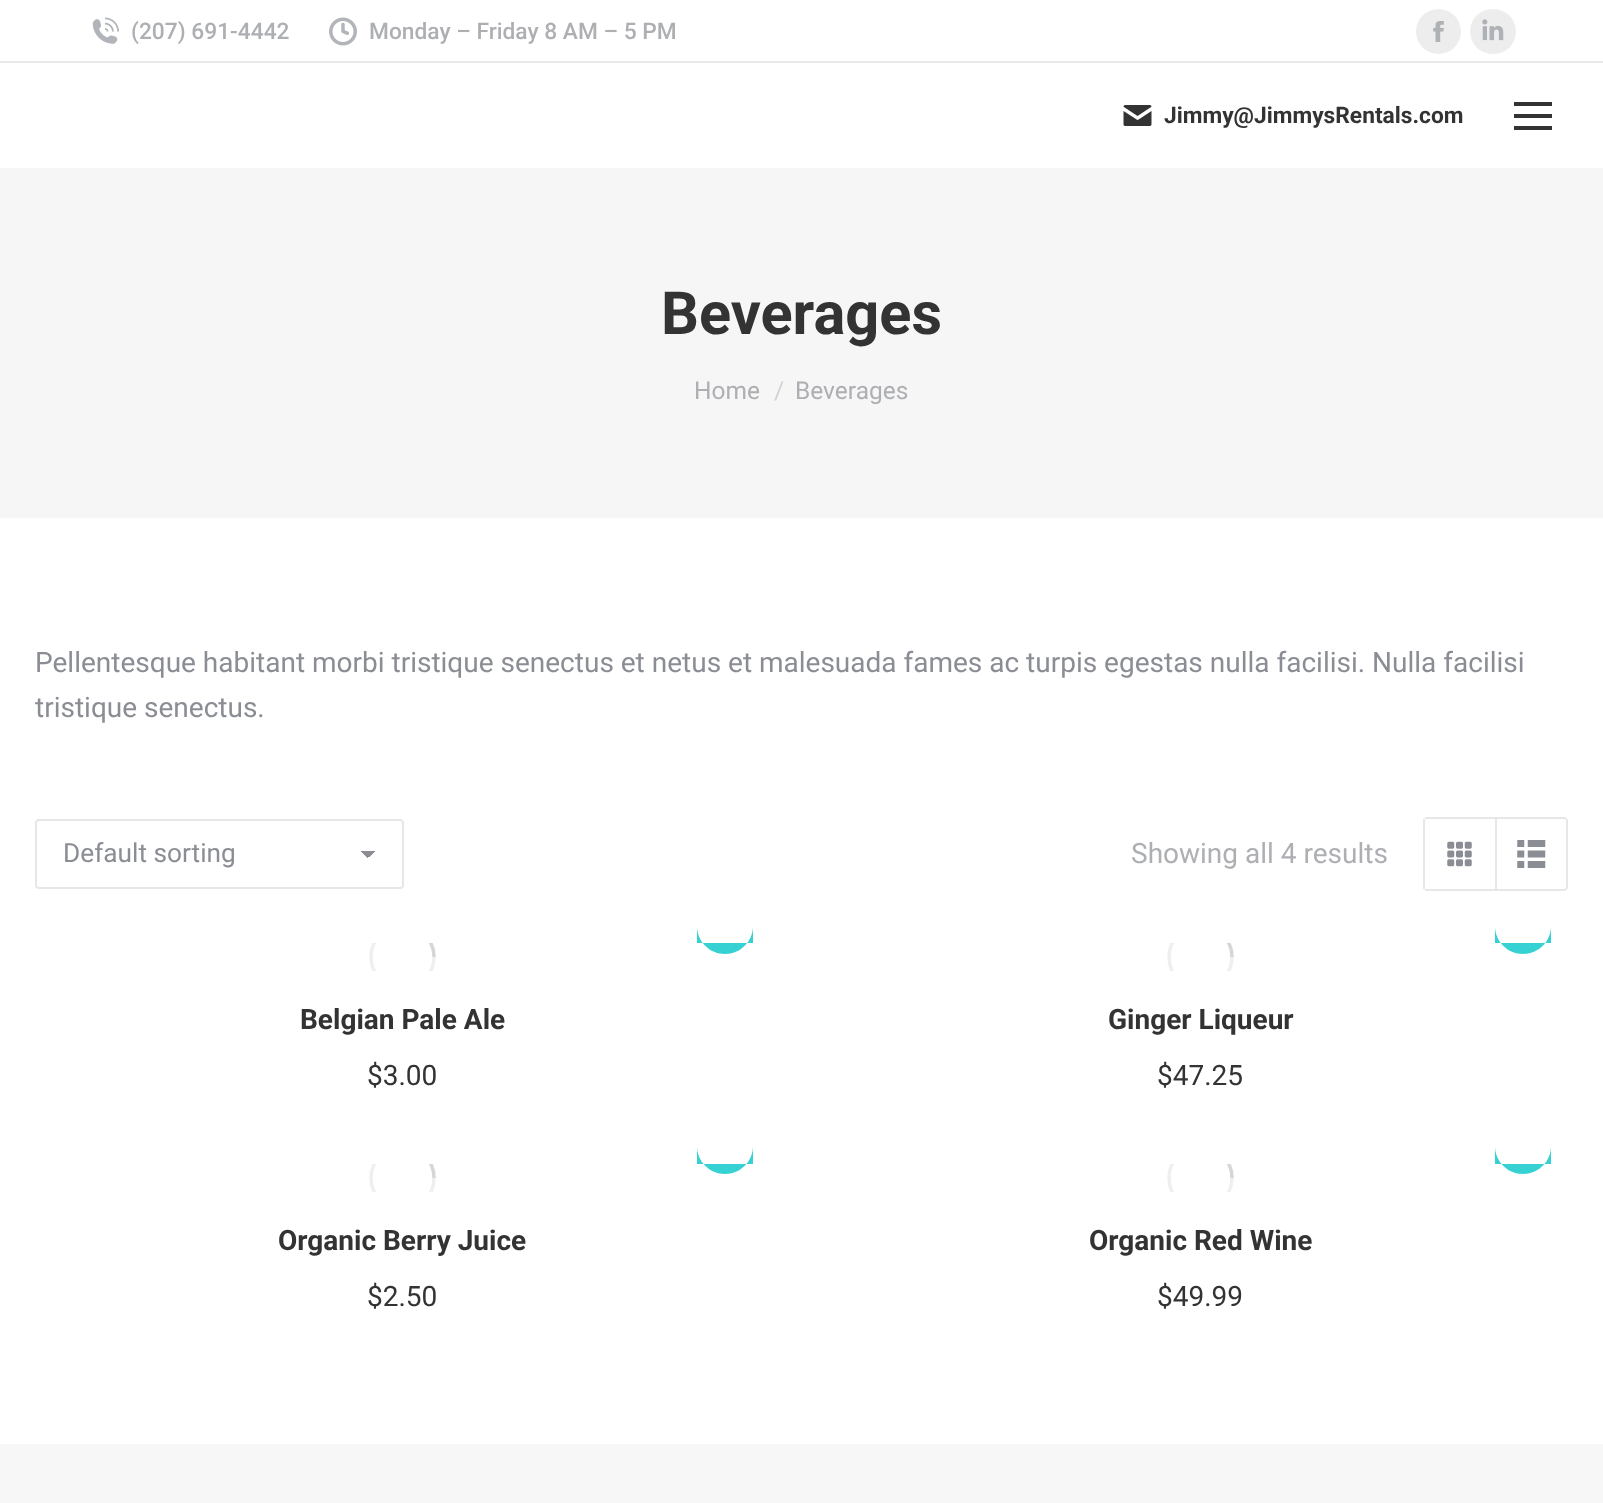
<svg xmlns="http://www.w3.org/2000/svg" width="1603" height="1503" viewBox="0 0 1603 1503">
  <defs>
    <linearGradient id="g1" gradientUnits="userSpaceOnUse" x1="368" y1="850" x2="376" y2="858"><stop offset="0.5" stop-color="#8b8d94"/><stop offset="0.5" stop-color="#fdfdfd"/></linearGradient>
    <linearGradient id="g2" gradientUnits="userSpaceOnUse" x1="359" y1="858" x2="368" y2="850"><stop offset="0.5" stop-color="#fdfdfd"/><stop offset="0.5" stop-color="#8b8d94"/></linearGradient>
    <clipPath id="clip1"><path d="M369 943h67v28H369z"/></clipPath>
    <clipPath id="clip2"><path d="M1167 943h67v28H1167z"/></clipPath>
    <clipPath id="clip3"><path d="M369 1164h67v28H369z"/></clipPath>
    <clipPath id="clip4"><path d="M1167 1164h67v28H1167z"/></clipPath>
  </defs>
  <rect width="100%" height="100%" fill="#f7f7f7"/>
  <path d="M0 0h1603v1444H0z" fill="#fff"/>
  <image x="92" y="17" width="27" height="27" href="img/1.png"/>
  <image x="329" y="17" width="28" height="29" href="img/2.png"/>
  <circle cx="1438.5" cy="31.5" r="22.5" fill="#ededed"/>
  <image x="1433" y="21" width="11" height="21" href="img/3.png"/>
  <rect x="1470" y="9" width="46" height="45" rx="22.5" fill="#ededed"/>
  <image x="1482" y="19" width="22" height="22" href="img/4.png"/>
  <path d="M0 61h1603v2H0z" fill="#e9e9e9"/>
  <image x="1123" y="105" width="29" height="21" href="img/5.png"/>
  <path d="M1514 102h38v4H1514z" fill="#333"/>
  <path d="M1514 114h38v4H1514z" fill="#333"/>
  <path d="M1514 126h38v4H1514z" fill="#333"/>
  <path d="M0 168h1603v350H0z" fill="#f6f6f6"/>
  <path d="M368 851h8v6H368z" fill="url(#g1)"/>
  <path d="M359 851h9v7H359z" fill="url(#g2)"/>
  <rect x="36" y="820" width="367" height="68" rx="3" fill="none" stroke="#e7e7e7" stroke-width="2"/>
  <path d="M1425 817h70v2H1425z" fill="#e7e7e7"/>
  <path d="M1425 889h70v2H1425z" fill="#e7e7e7"/>
  <path d="M1423 819h2v70H1423z" fill="#e7e7e7"/>
  <image x="1447" y="841" width="25" height="26" href="img/6.png"/>
  <path d="M1496 818H1564C1565.5 818 1567 819.5 1567 821V887C1567 888.5 1565.5 890 1564 890H1496Z" fill="none" stroke="#e7e7e7" stroke-width="2"/>
  <image x="1517" y="840" width="29" height="28" href="img/7.png"/>
  <g clip-path="url(#clip1)">
    <circle cx="402.5" cy="957" r="31.5" fill="none" stroke="#efeff0" stroke-width="3.5"/>
    <path d="M434 957C434 940 420 926 402.5 926" fill="none" stroke="#8b8d9440" stroke-width="3.5"/>
  </g>
  <path d="M697 943H753V926C753 941.5 740.5 954 725 954C709.5 954 697 941.5 697 926Z" fill="#36d2d3"/>
  <g clip-path="url(#clip2)">
    <circle cx="1200.5" cy="957" r="31.5" fill="none" stroke="#efeff0" stroke-width="3.5"/>
    <path d="M1232 957C1232 940 1218 926 1200.5 926" fill="none" stroke="#8b8d9440" stroke-width="3.5"/>
  </g>
  <path d="M1495 943H1551V926C1551 941.5 1538.5 954 1523 954C1507.5 954 1495 941.5 1495 926Z" fill="#36d2d3"/>
  <g clip-path="url(#clip3)">
    <circle cx="402.5" cy="1178" r="31.5" fill="none" stroke="#efeff0" stroke-width="3.5"/>
    <path d="M434 1178C434 1160.5 420 1146 402.5 1146" fill="none" stroke="#8b8d9440" stroke-width="3.5"/>
  </g>
  <path d="M697 1164H753V1146C753 1161.5 740.5 1174 725 1174C709.5 1174 697 1161.5 697 1146Z" fill="#36d2d3"/>
  <g clip-path="url(#clip4)">
    <circle cx="1200.5" cy="1178" r="31.5" fill="none" stroke="#efeff0" stroke-width="3.5"/>
    <path d="M1232 1178C1232 1160.5 1218 1146 1200.5 1146" fill="none" stroke="#8b8d9440" stroke-width="3.5"/>
  </g>
  <path d="M1495 1164H1551V1146C1551 1161.5 1538.5 1174 1523 1174C1507.5 1174 1495 1161.5 1495 1146Z" fill="#36d2d3"/>
  <g font-family="Roboto" font-size="22.75" font-weight="500" fill="#adafb3">
    <text x="131" y="39">(207) 691-4442</text>
    <text x="369" y="39">Monday – Friday 8 AM – 5 PM</text>
  </g>
  <text x="1164" y="123" font-family="Roboto" font-size="22.75" font-weight="bold" fill="#333">Jimmy@JimmysRentals.com</text>
  <text x="661" y="334" font-family="Roboto" font-size="59.5" font-weight="bold" fill="#333">Beverages</text>
  <text x="694" y="399" font-family="Roboto" font-size="24.5" fill="#adafb3">Home</text>
  <text x="774" y="399" font-family="Roboto" font-size="24.5" fill="#d2d3d5">/</text>
  <text x="795" y="399" font-family="Roboto" font-size="24.5" fill="#adafb3">Beverages</text>
  <g font-family="Roboto" font-size="28" fill="#8b8d94">
    <text x="35" y="672">Pellentesque habitant morbi tristique senectus et netus et malesuada fames ac turpis egestas nulla facilisi. Nulla facilisi</text>
    <text x="35" y="717">tristique senectus.</text>
  </g>
  <text x="63" y="862" font-family="Roboto" font-size="26.25" fill="#8b8d94">Default sorting</text>
  <text x="1131" y="863" font-family="Roboto" font-size="28" fill="#adafb3">Showing all 4 results</text>
  <text x="300" y="1029" font-family="Roboto" font-size="28" font-weight="bold" fill="#333">Belgian Pale Ale</text>
  <text x="367" y="1085" font-family="Roboto" font-size="28" fill="#333">$3.00</text>
  <text x="1108" y="1029" font-family="Roboto" font-size="28" font-weight="bold" fill="#333">Ginger Liqueur</text>
  <text x="1157" y="1085" font-family="Roboto" font-size="28" fill="#333">$47.25</text>
  <text x="278" y="1250" font-family="Roboto" font-size="28" font-weight="bold" fill="#333">Organic Berry Juice</text>
  <text x="367" y="1306" font-family="Roboto" font-size="28" fill="#333">$2.50</text>
  <text x="1089" y="1250" font-family="Roboto" font-size="28" font-weight="bold" fill="#333">Organic Red Wine</text>
  <text x="1157" y="1306" font-family="Roboto" font-size="28" fill="#333">$49.99</text>
</svg>
